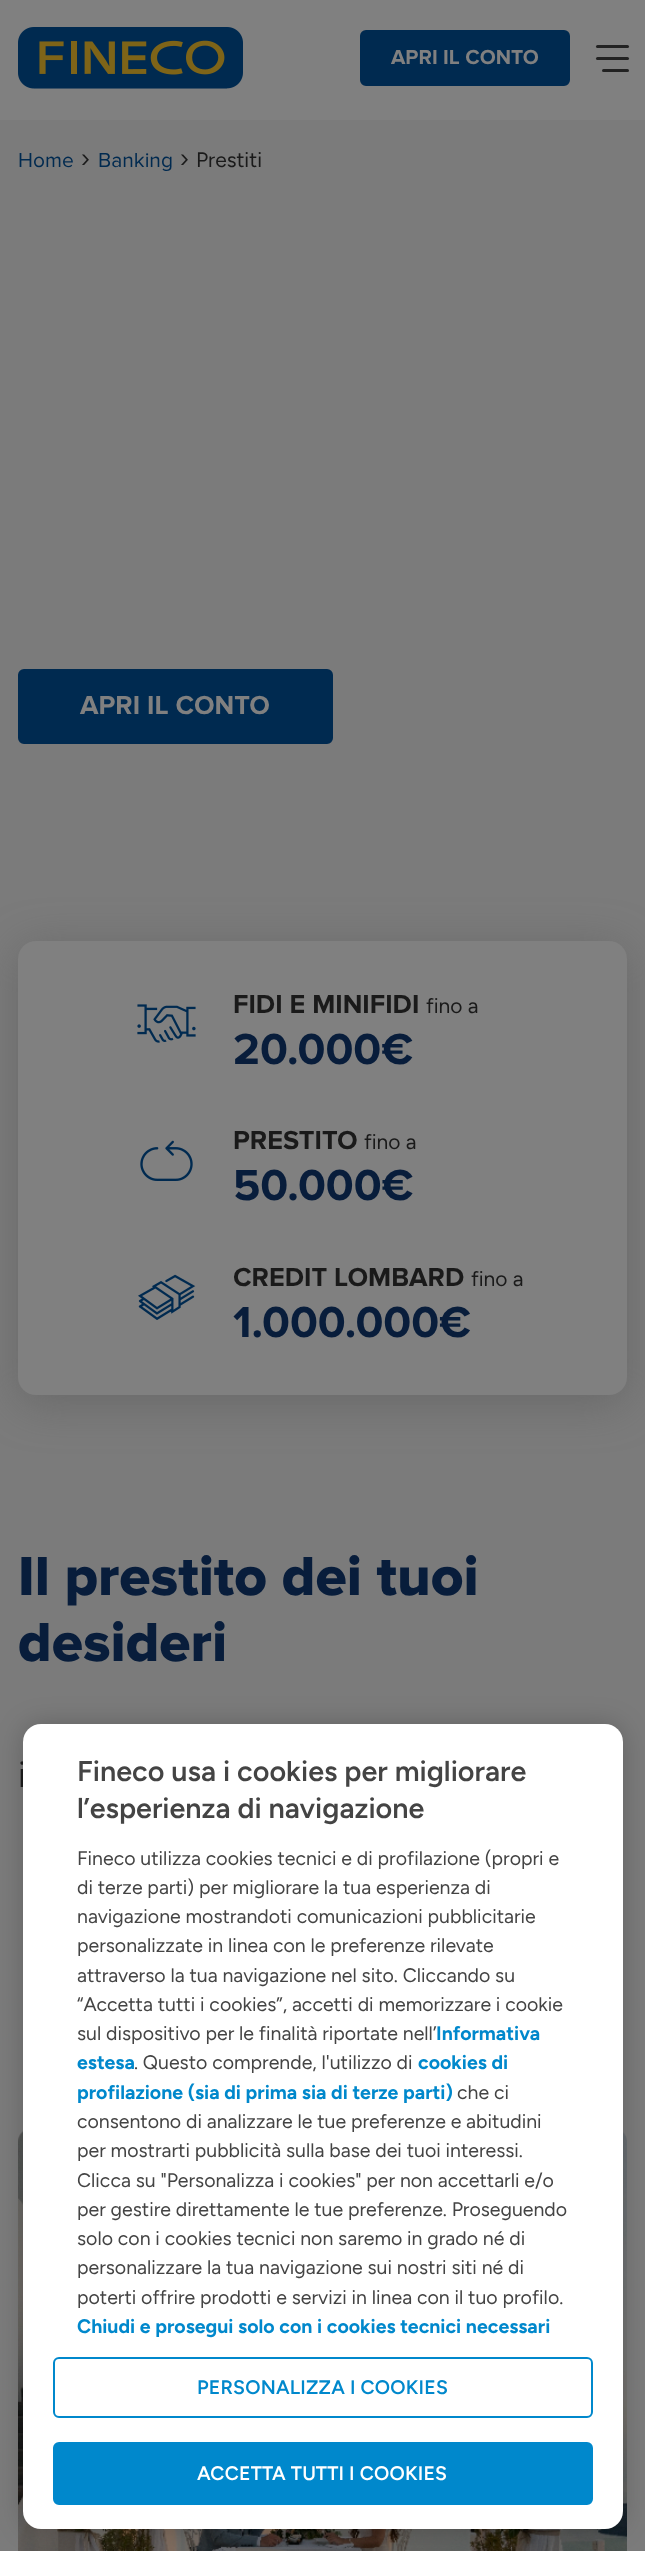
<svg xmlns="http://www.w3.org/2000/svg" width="645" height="2551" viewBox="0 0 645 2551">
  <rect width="100%" height="100%" fill="#808080"/>
  <image x="18" y="27" width="225" height="62" href="img/1.png"/>
  <rect x="361" y="31" width="208" height="54" rx="5" fill="#002a50" stroke="#002a50" stroke-width="2"/>
  <rect x="596" y="57" width="33" height="3" rx="1.5" fill="#222"/>
  <rect x="596" y="45" width="33" height="3" rx="1.5" fill="#222"/>
  <rect x="602" y="69" width="27" height="3" rx="1.5" fill="#222"/>
  <path d="M0 120h645v2431H0z" fill="#7b7b7b"/>
  <rect x="19" y="670" width="313" height="73" rx="5" fill="#002a50" stroke="#002a50" stroke-width="2"/>
  <rect x="18" y="948" width="609" height="455" rx="18" fill="#55555580" filter="blur(22.5px)"/>
  <rect x="18" y="941" width="609" height="454" rx="18" fill="#808080"/>
  <image x="137" y="1004" width="59" height="39" href="img/2.png"/>
  <image x="140" y="1140" width="53" height="41" href="img/3.png"/>
  <image x="138" y="1274" width="58" height="46" href="img/4.png"/>
  <image x="18" y="2130" width="609" height="421" href="img/5.png"/>
  <rect x="23" y="1724" width="600" height="805" rx="18" fill="#00000033" filter="blur(13.5px)"/>
  <text x="391" y="64" font-family="Proxima Nova" font-size="21" font-weight="bold" fill="#808080">APRI IL CONTO</text>
  <text x="18" y="167" font-family="Proxima Nova" font-size="21" fill="#002a50">Home</text>
  <text x="81" y="167" font-family="Proxima Nova" font-size="30" fill="#1a1a1a">›</text>
  <text x="98" y="167" font-family="Proxima Nova" font-size="21" fill="#002a50">Banking</text>
  <text x="180" y="167" font-family="Proxima Nova" font-size="30" fill="#1a1a1a">›</text>
  <text x="196" y="167" font-family="Figtree" font-size="21" fill="#1a1a1a">Prestiti</text>
  <text x="80" y="714" font-family="Proxima Nova" font-size="27" font-weight="bold" fill="#808080">APRI IL CONTO</text>
  <text x="233" y="1013" font-family="Proxima Nova" font-size="27" font-weight="bold" fill="#1a1a1a">FIDI E MINIFIDI</text>
  <text x="426" y="1013" font-family="Figtree" font-size="21" fill="#1a1a1a">fino a</text>
  <text x="233" y="1064" font-family="Proxima Nova" font-size="45" font-weight="bold" fill="#081d3b">20.000€</text>
  <text x="233" y="1149" font-family="Proxima Nova" font-size="27" font-weight="bold" fill="#1a1a1a">PRESTITO</text>
  <text x="364" y="1149" font-family="Figtree" font-size="21" fill="#1a1a1a">fino a</text>
  <text x="233" y="1200" font-family="Proxima Nova" font-size="45" font-weight="bold" fill="#081d3b">50.000€</text>
  <text x="233" y="1286" font-family="Proxima Nova" font-size="27" font-weight="bold" fill="#1a1a1a">CREDIT LOMBARD</text>
  <text x="471" y="1286" font-family="Figtree" font-size="21" fill="#1a1a1a">fino a</text>
  <text x="233" y="1337" font-family="Proxima Nova" font-size="45" font-weight="bold" fill="#081d3b">1.000.000€</text>
  <g font-family="Proxima Nova" font-size="57" font-weight="800" fill="#081d3b">
    <text x="18" y="1595">Il prestito dei tuoi</text>
    <text x="18" y="1661">desideri</text>
  </g>
  <text x="18" y="1787" font-family="Figtree" font-size="36" fill="#1a1a1a">i</text>
  <rect x="23" y="1724" width="600" height="805" rx="18" fill="#fff"/>
  <g font-family="Figtree" font-size="28.75" font-weight="600" fill="#444">
    <text x="77" y="1781">Fineco usa i cookies per migliorare</text>
    <text x="77" y="1818">l’esperienza di navigazione</text>
  </g>
  <g font-family="Figtree" font-size="19.5" fill="#444">
    <text x="77" y="1865">Fineco utilizza cookies tecnici e di profilazione (propri e</text>
    <text x="77" y="1894">di terze parti) per migliorare la tua esperienza di</text>
    <text x="77" y="1923">navigazione mostrandoti comunicazioni pubblicitarie</text>
    <text x="77" y="1952">personalizzate in linea con le preferenze rilevate</text>
    <text x="77" y="1982">attraverso la tua navigazione nel sito. Cliccando su</text>
    <text x="77" y="2011">“Accetta tutti i cookies”, accetti di memorizzare i cookie</text>
    <text x="77" y="2040">sul dispositivo per le finalità riportate nell’</text>
  </g>
  <g font-family="Figtree" font-size="19.5" font-weight="bold" fill="#08c">
    <text x="436" y="2040">Informativa</text>
    <text x="77" y="2069">estesa</text>
  </g>
  <text x="134" y="2069" font-family="Figtree" font-size="19.5" fill="#444">. Questo comprende, l'utilizzo di</text>
  <g font-family="Figtree" font-size="19.5" font-weight="bold" fill="#08c">
    <text x="418" y="2069">cookies di</text>
    <text x="77" y="2099">profilazione (sia di prima sia di terze parti)</text>
  </g>
  <g font-family="Figtree" font-size="19.5" fill="#444">
    <text x="457" y="2099">che ci</text>
    <text x="77" y="2128">consentono di analizzare le tue preferenze e abitudini</text>
    <text x="77" y="2157">per mostrarti pubblicità sulla base dei tuoi interessi.</text>
    <text x="77" y="2187">Clicca su "Personalizza i cookies" per non accettarli e/o</text>
    <text x="77" y="2216">per gestire direttamente le tue preferenze. Proseguendo</text>
    <text x="77" y="2245">solo con i cookies tecnici non saremo in grado né di</text>
    <text x="77" y="2274">personalizzare la tua navigazione sui nostri siti né di</text>
    <text x="77" y="2304">poterti offrire prodotti e servizi in linea con il tuo profilo.</text>
  </g>
  <text x="77" y="2333" font-family="Figtree" font-size="19.5" font-weight="bold" fill="#08c">Chiudi e prosegui solo con i cookies tecnici necessari</text>
  <rect x="54" y="2358" width="538" height="59" rx="5" fill="none" stroke="#08c" stroke-width="2"/>
  <text x="197" y="2394" font-family="Figtree" font-size="19.5" font-weight="600" letter-spacing="0.2" fill="#08c">PERSONALIZZA I COOKIES</text>
  <rect x="54" y="2443" width="538" height="61" rx="5" fill="#08c" stroke="#08c" stroke-width="2"/>
  <text x="197" y="2480" font-family="Figtree" font-size="19.5" font-weight="600" letter-spacing="0.2" fill="#fff">ACCETTA TUTTI I COOKIES</text>
</svg>
